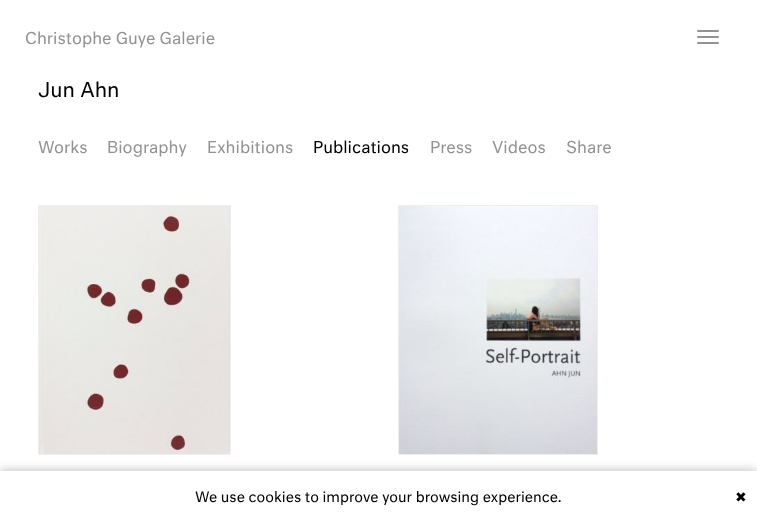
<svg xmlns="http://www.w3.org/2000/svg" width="757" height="521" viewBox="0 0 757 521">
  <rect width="100%" height="100%" fill="#fff"/>
  <rect x="697" y="30" width="22" height="2" rx="1" fill="#929292"/>
  <rect x="697" y="36" width="22" height="2" rx="1" fill="#929292"/>
  <rect x="697" y="42" width="22" height="2" rx="1" fill="#929292"/>
  <path d="M38.5 205.5h192v249H38.5z" fill="none" stroke="#eee"/>
  <image x="39" y="206" width="191" height="248" href="img/1.png"/>
  <path d="M398.5 205.5h199v249H398.5z" fill="none" stroke="#eee"/>
  <image x="399" y="206" width="198" height="248" href="img/2.png"/>
  <path d="M0 469h757v50H0z" fill="#00000033" filter="blur(4px)"/>
  <path d="M0 471h757v50H0z" fill="#fff"/>
  <text x="25" y="44" font-family="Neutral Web" font-size="16" fill="#929292">Christophe Guye Galerie</text>
  <text x="38" y="97" font-family="Neutral Web" font-size="20" fill="#000">Jun Ahn</text>
  <g font-family="Neutral Web" font-size="16" fill="#929292">
    <text x="38" y="153">Works</text>
    <text x="107" y="153">Biography</text>
    <text x="207" y="153">Exhibitions</text>
  </g>
  <text x="313" y="153" font-family="Neutral Web" font-size="16" fill="#000">Publications</text>
  <g font-family="Neutral Web" font-size="16" fill="#929292">
    <text x="430" y="153">Press</text>
    <text x="492" y="153">Videos</text>
    <text x="566" y="153">Share</text>
  </g>
  <text x="195" y="502" font-family="Neutral Web" font-size="14" fill="#000">We use cookies to improve your browsing experience.</text>
  <text x="735" y="502" font-family="DejaVu Sans" font-size="14" fill="#000">✖</text>
</svg>
